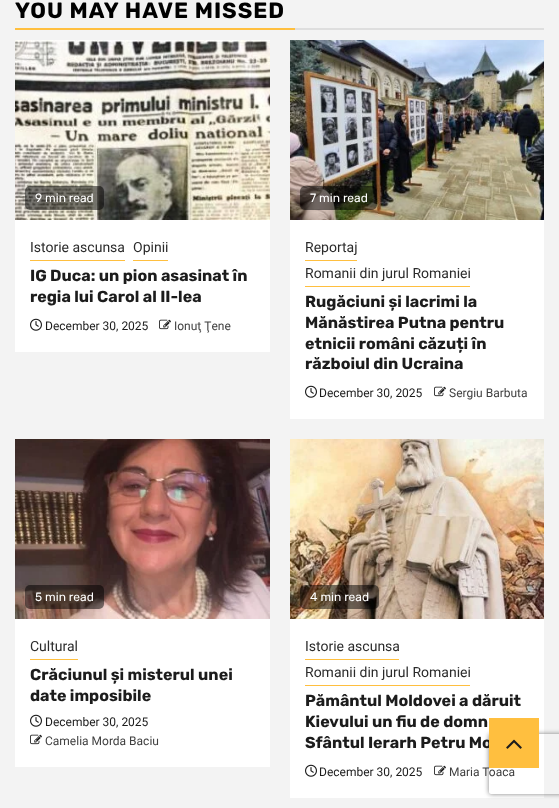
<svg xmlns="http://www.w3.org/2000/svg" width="559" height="808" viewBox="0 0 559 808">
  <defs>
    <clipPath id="clip1"><path d="M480 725H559V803H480ZM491 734H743C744 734 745 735 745 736V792C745 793 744 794 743 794H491C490 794 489 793 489 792V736C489 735 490 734 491 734Z" clip-rule="evenodd"/></clipPath>
  </defs>
  <rect width="100%" height="100%" fill="#f3f3f3"/>
  <path d="M15 28h280v2H15z" fill="#ffbf3f"/>
  <path d="M295 28h249v2H295z" fill="#dedede"/>
  <path d="M15 220h255v132H15z" fill="#fff"/>
  <image x="15" y="40" width="255" height="180" href="img/1.png"/>
  <rect x="25" y="186" width="79" height="24" rx="5" fill="#00000080"/>
  <path d="M30 260h95v1H30z" fill="#ffbf3f"/>
  <path d="M133 260h35v1H133z" fill="#ffbf3f"/>
  <image x="30" y="318" width="12" height="13" href="img/2.png"/>
  <image x="159" y="319" width="12" height="11" href="img/3.png"/>
  <path d="M290 220h254v199H290z" fill="#fff"/>
  <image x="290" y="40" width="254" height="180" href="img/4.png"/>
  <rect x="300" y="186" width="77" height="24" rx="5" fill="#00000080"/>
  <path d="M305 260h52v1H305z" fill="#ffbf3f"/>
  <path d="M305 286h165v1H305z" fill="#ffbf3f"/>
  <image x="305" y="385" width="12" height="13" href="img/2.png"/>
  <image x="434" y="386" width="12" height="11" href="img/3.png"/>
  <path d="M15 619h255v148H15z" fill="#fff"/>
  <image x="15" y="439" width="255" height="180" href="img/5.png"/>
  <rect x="25" y="585" width="79" height="24" rx="5" fill="#00000080"/>
  <path d="M30 659h48v1H30z" fill="#ffbf3f"/>
  <image x="30" y="714" width="12" height="13" href="img/2.png"/>
  <image x="30" y="734" width="12" height="11" href="img/3.png"/>
  <path d="M290 619h254v179H290z" fill="#fff"/>
  <image x="290" y="439" width="254" height="180" href="img/6.png"/>
  <rect x="300" y="585" width="79" height="24" rx="5" fill="#00000080"/>
  <path d="M305 659h94v1H305z" fill="#ffbf3f"/>
  <path d="M305 685h165v1H305z" fill="#ffbf3f"/>
  <image x="305" y="764" width="12" height="13" href="img/2.png"/>
  <image x="434" y="765" width="12" height="11" href="img/3.png"/>
  <g clip-path="url(#clip1)">
    <rect x="489" y="734" width="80" height="60" rx="2" fill="#808080" filter="blur(2.5px)"/>
  </g>
  <text x="15" y="18" font-family="Rubik" font-size="22" font-weight="bold" letter-spacing="1" fill="#000">YOU MAY HAVE MISSED</text>
  <text x="35" y="202" font-family="Rubik" font-size="12" fill="#fff">9 min read</text>
  <g font-family="Roboto" font-size="14" fill="#2b2b2b">
    <text x="30" y="252">Istorie ascunsa</text>
    <text x="133" y="252">Opinii</text>
  </g>
  <g font-family="Rubik" font-size="16" font-weight="bold" fill="#1c1c1c">
    <text x="30" y="281">IG Duca: un pion asasinat în</text>
    <text x="30" y="302">regia lui Carol al II-lea</text>
  </g>
  <text x="45" y="330" font-family="Roboto" font-size="12" fill="#1c1c1c">December 30, 2025</text>
  <text x="174" y="330" font-family="Roboto" font-size="12" fill="#404040">Ionuţ Ţene</text>
  <text x="310" y="202" font-family="Rubik" font-size="12" fill="#fff">7 min read</text>
  <g font-family="Roboto" font-size="14" fill="#2b2b2b">
    <text x="305" y="252">Reportaj</text>
    <text x="305" y="278">Romanii din jurul Romaniei</text>
  </g>
  <g font-family="Rubik" font-size="16" font-weight="bold" fill="#1c1c1c">
    <text x="305" y="307">Rugăciuni și lacrimi la</text>
    <text x="305" y="328">Mănăstirea Putna pentru</text>
    <text x="305" y="349">etnicii români căzuți în</text>
    <text x="305" y="369">războiul din Ucraina</text>
  </g>
  <text x="319" y="397" font-family="Roboto" font-size="12" fill="#1c1c1c">December 30, 2025</text>
  <text x="449" y="397" font-family="Roboto" font-size="12" fill="#404040">Sergiu Barbuta</text>
  <text x="35" y="601" font-family="Rubik" font-size="12" fill="#fff">5 min read</text>
  <text x="30" y="651" font-family="Roboto" font-size="14" fill="#2b2b2b">Cultural</text>
  <g font-family="Rubik" font-size="16" font-weight="bold" fill="#1c1c1c">
    <text x="30" y="680">Crăciunul și misterul unei</text>
    <text x="30" y="701">date imposibile</text>
  </g>
  <text x="45" y="726" font-family="Roboto" font-size="12" fill="#1c1c1c">December 30, 2025</text>
  <text x="45" y="745" font-family="Roboto" font-size="12" fill="#404040">Camelia Morda Baciu</text>
  <text x="310" y="601" font-family="Rubik" font-size="12" fill="#fff">4 min read</text>
  <g font-family="Roboto" font-size="14" fill="#2b2b2b">
    <text x="305" y="651">Istorie ascunsa</text>
    <text x="305" y="677">Romanii din jurul Romaniei</text>
  </g>
  <g font-family="Rubik" font-size="16" font-weight="bold" fill="#1c1c1c">
    <text x="305" y="706">Pământul Moldovei a dăruit</text>
    <text x="305" y="727">Kievului un fiu de domn</text>
    <text x="305" y="748">Sfântul Ierarh Petru Mo</text>
  </g>
  <text x="319" y="776" font-family="Roboto" font-size="12" fill="#1c1c1c">December 30, 2025</text>
  <text x="449" y="776" font-family="Roboto" font-size="12" fill="#404040">Maria Toaca</text>
  <path d="M489 718h50v50H489z" fill="#ffbf3f"/>
  <image x="506" y="739" width="16" height="10" href="img/7.png"/>
</svg>
